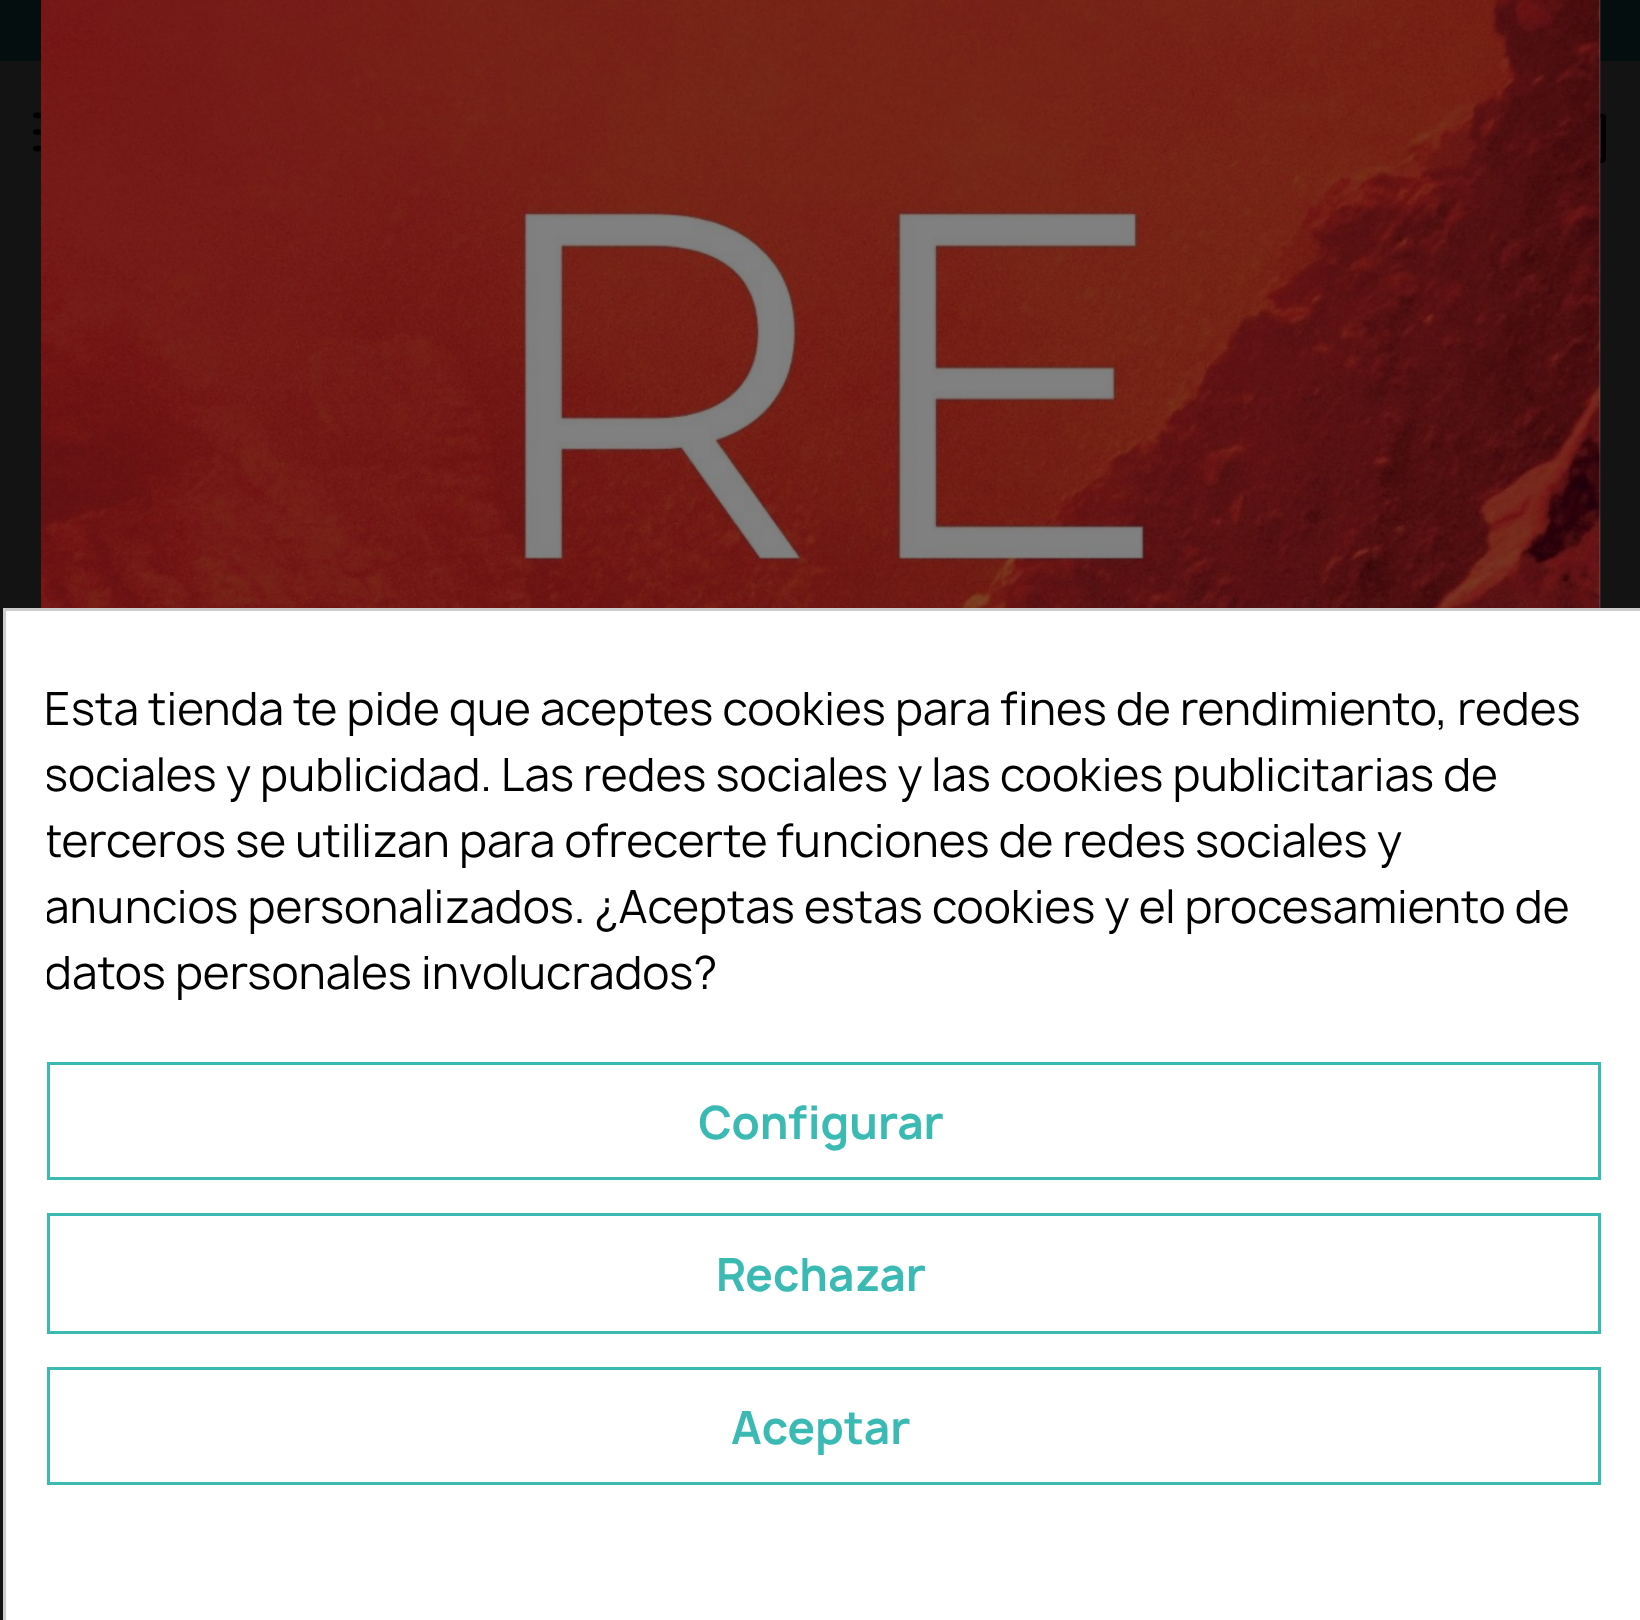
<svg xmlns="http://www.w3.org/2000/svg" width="1640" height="1620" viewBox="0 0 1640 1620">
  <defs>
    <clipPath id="clip1"><path d="M47 677h1554v330H47z"/></clipPath>
  </defs>
  <rect width="100%" height="100%" fill="#131313"/>
  <path d="M0 0h1640v61H0z" fill="#050e0e"/>
  <image x="33" y="112" width="8" height="40" href="img/1.png"/>
  <image x="1600" y="113" width="6" height="50" href="img/2.png"/>
  <image x="41" y="0" width="1560" height="608" href="img/3.png"/>
  <path d="M4.5 609.5h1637v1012H4.5z" fill="#fff" stroke="#ccc" stroke-width="3"/>
  <path d="M48.5 1063.5h1551v115H48.5z" fill="none" stroke="#3bbab4" stroke-width="3"/>
  <path d="M48.5 1214.5h1551v118H48.5z" fill="none" stroke="#3bbab4" stroke-width="3"/>
  <path d="M48.5 1368.5h1551v115H48.5z" fill="none" stroke="#3bbab4" stroke-width="3"/>
  <text x="44" y="725" font-family="Manrope" font-size="44" fill="#000">Esta tienda te pide que aceptes cookies para fines de rendimiento, redes</text>
  <g clip-path="url(#clip1)">
    <g font-family="Manrope" font-size="44" fill="#000">
      <text x="44" y="791">sociales y publicidad. Las redes sociales y las cookies publicitarias de</text>
      <text x="44" y="857">terceros se utilizan para ofrecerte funciones de redes sociales y</text>
      <text x="44" y="923">anuncios personalizados. ¿Aceptas estas cookies y el procesamiento de</text>
      <text x="44" y="989">datos personales involucrados?</text>
    </g>
  </g>
  <g font-family="Manrope" font-size="44" font-weight="bold" fill="#3bbab4">
    <text x="698" y="1139">Configurar</text>
    <text x="716" y="1291">Rechazar</text>
    <text x="731" y="1444">Aceptar</text>
  </g>
</svg>
